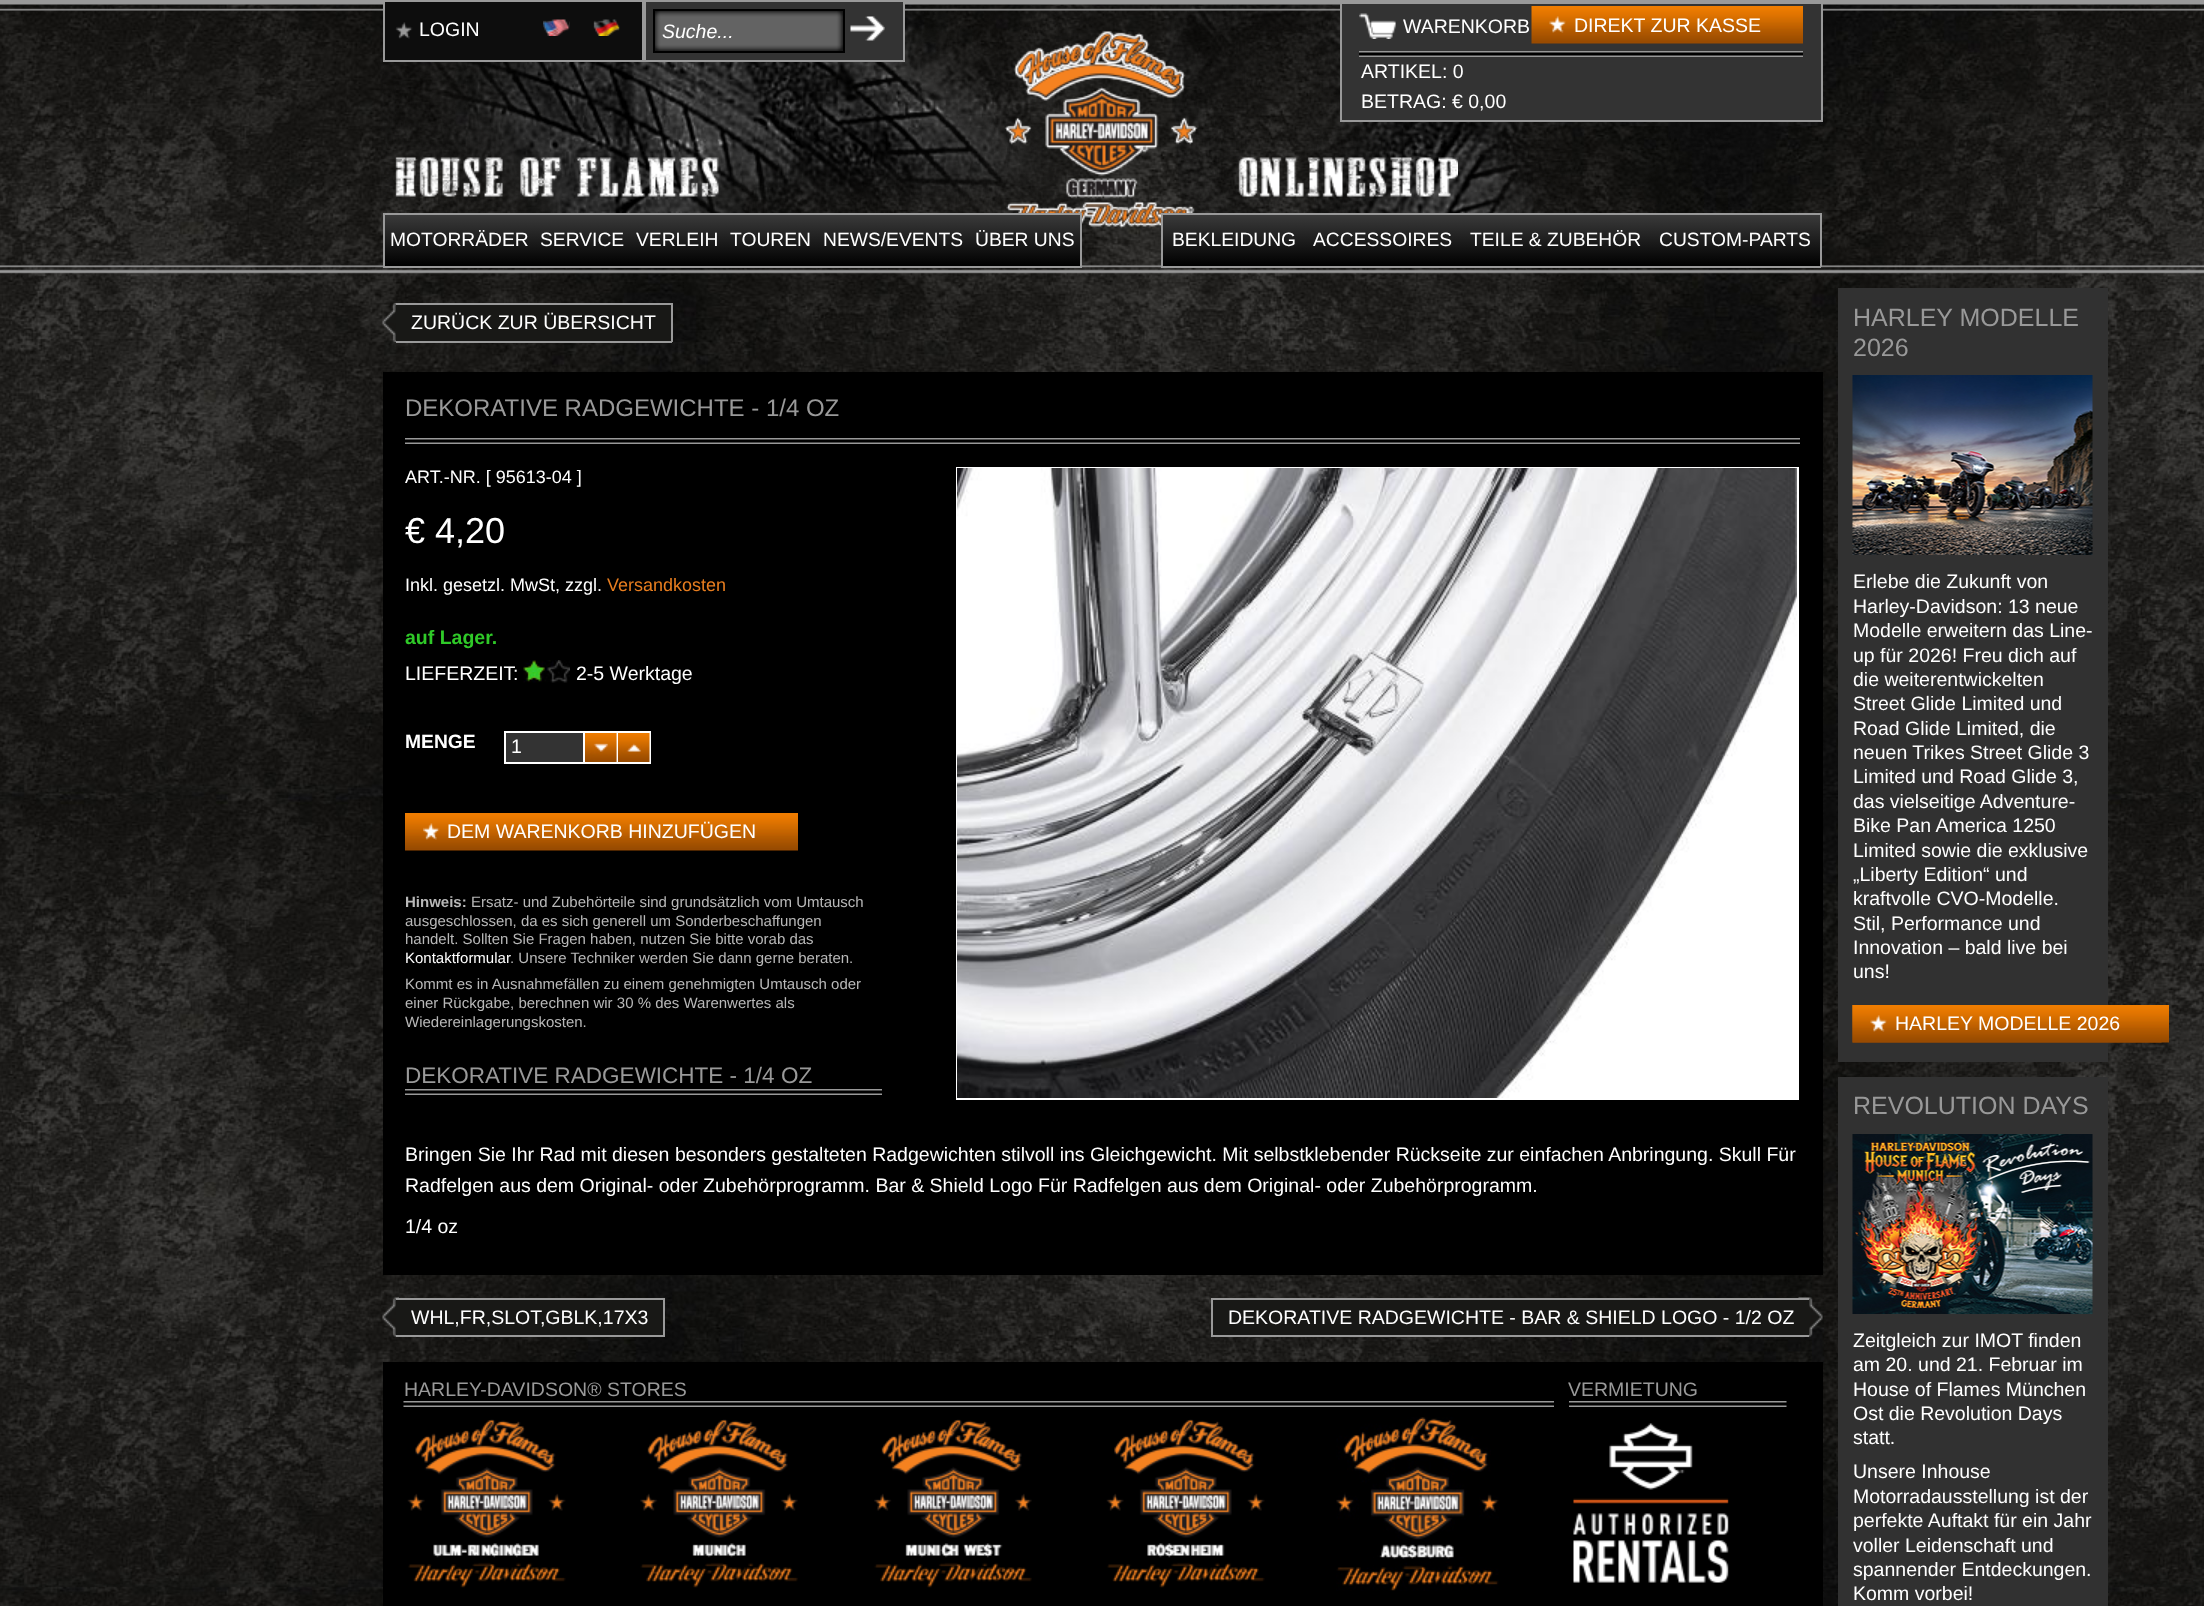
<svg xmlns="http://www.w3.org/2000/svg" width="2204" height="1606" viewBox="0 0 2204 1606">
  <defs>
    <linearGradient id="g1" gradientUnits="userSpaceOnUse" x1="459" y1="215" x2="459" y2="266"><stop offset="0" stop-color="#3a3a3a"/><stop offset="1" stop-color="#000"/></linearGradient>
    <linearGradient id="g2" gradientUnits="userSpaceOnUse" x1="582" y1="215" x2="582" y2="266"><stop offset="0" stop-color="#3a3a3a"/><stop offset="1" stop-color="#000"/></linearGradient>
    <linearGradient id="g3" gradientUnits="userSpaceOnUse" x1="677" y1="215" x2="677" y2="266"><stop offset="0" stop-color="#3a3a3a"/><stop offset="1" stop-color="#000"/></linearGradient>
    <linearGradient id="g4" gradientUnits="userSpaceOnUse" x1="771" y1="215" x2="771" y2="266"><stop offset="0" stop-color="#3a3a3a"/><stop offset="1" stop-color="#000"/></linearGradient>
    <linearGradient id="g5" gradientUnits="userSpaceOnUse" x1="893" y1="215" x2="893" y2="266"><stop offset="0" stop-color="#3a3a3a"/><stop offset="1" stop-color="#000"/></linearGradient>
    <linearGradient id="g6" gradientUnits="userSpaceOnUse" x1="1025" y1="215" x2="1025" y2="266"><stop offset="0" stop-color="#3a3a3a"/><stop offset="1" stop-color="#000"/></linearGradient>
    <linearGradient id="g7" gradientUnits="userSpaceOnUse" x1="1234" y1="215" x2="1234" y2="266"><stop offset="0" stop-color="#3a3a3a"/><stop offset="1" stop-color="#000"/></linearGradient>
    <linearGradient id="g8" gradientUnits="userSpaceOnUse" x1="1383" y1="215" x2="1383" y2="266"><stop offset="0" stop-color="#3a3a3a"/><stop offset="1" stop-color="#000"/></linearGradient>
    <linearGradient id="g9" gradientUnits="userSpaceOnUse" x1="1556" y1="215" x2="1556" y2="266"><stop offset="0" stop-color="#3a3a3a"/><stop offset="1" stop-color="#000"/></linearGradient>
    <linearGradient id="g10" gradientUnits="userSpaceOnUse" x1="1735" y1="215" x2="1735" y2="266"><stop offset="0" stop-color="#3a3a3a"/><stop offset="1" stop-color="#000"/></linearGradient>
  </defs>
  <rect width="100%" height="100%" fill="#fff"/>
  <image x="0" y="4" width="2204" height="1602" href="img/1.png"/>
  <image x="0" y="0" width="2204" height="274" href="img/2.png"/>
  <image x="395" y="157" width="1063" height="40" href="img/3.png"/>
  <path d="M384 1h259v60H384z" fill="#0d0d0d" stroke="#999" stroke-width="2"/>
  <image x="395" y="22" width="18" height="17" href="img/4.png"/>
  <image x="543" y="19" width="27" height="17" href="img/5.png"/>
  <image x="593" y="19" width="27" height="17" href="img/6.png"/>
  <path d="M645 1h259v60H645z" fill="#333" stroke="#999" stroke-width="2"/>
  <image x="655" y="11" width="188" height="40" href="img/7.png"/>
  <path d="M654 10h190v42H654z" fill="none" stroke="#000" stroke-width="2"/>
  <image x="850" y="16" width="35" height="25" href="img/8.png"/>
  <path d="M1342 4h479v116H1342z" fill="#333"/>
  <path d="M1341 1h481v120H1341z" fill="none" stroke="#999" stroke-width="2"/>
  <image x="1359" y="51" width="444" height="6" href="img/9.png"/>
  <image x="1359" y="13" width="37" height="26" href="img/10.png"/>
  <image x="1531" y="6" width="272" height="38" href="img/11.png"/>
  <image x="1549" y="16" width="17" height="17" href="img/12.png"/>
  <image x="1004" y="31" width="194" height="198" href="img/13.png"/>
  <path d="M385 215h149v51H385z" fill="url(#g1)"/>
  <path d="M383 213h699v2H383z" fill="#999"/>
  <path d="M383 266h586v2H383z" fill="#999"/>
  <path d="M383 213h2v54H383z" fill="#999"/>
  <path d="M534 215h96v51H534z" fill="url(#g2)"/>
  <path d="M630 215h95v51H630z" fill="url(#g3)"/>
  <path d="M725 215h93v51H725z" fill="url(#g4)"/>
  <path d="M818 215h151v51H818z" fill="url(#g5)"/>
  <path d="M969 215h111v51H969z" fill="url(#g6)"/>
  <path d="M1080 213h2v54H1080z" fill="#999"/>
  <path d="M969 266h113v2H969z" fill="#999"/>
  <path d="M1163 215h142v51H1163z" fill="url(#g7)"/>
  <path d="M1161 213h660v2H1161z" fill="#999"/>
  <path d="M1161 266h489v2H1161z" fill="#999"/>
  <path d="M1161 213h2v54H1161z" fill="#999"/>
  <path d="M1305 215h156v51H1305z" fill="url(#g8)"/>
  <path d="M1461 215h189v51H1461z" fill="url(#g9)"/>
  <path d="M1650 215h170v51H1650z" fill="url(#g10)"/>
  <path d="M1820 213h2v54H1820z" fill="#999"/>
  <path d="M1650 266h171v2H1650z" fill="#999"/>
  <image x="382" y="303" width="14" height="39" href="img/14.png"/>
  <path d="M396 305h275v36H396z" fill="#181816"/>
  <path d="M396 303h276v2H396z" fill="#999"/>
  <path d="M671 303h2v39H671z" fill="#999"/>
  <path d="M396 341h276v2H396z" fill="#999"/>
  <path d="M383 372h1440v903H383z" fill="#000"/>
  <image x="405" y="438" width="1395" height="6" href="img/15.png"/>
  <image x="523" y="660" width="47" height="23" href="img/16.png"/>
  <path d="M505 732h79v31H505z" fill="#333" stroke="#fff" stroke-width="2"/>
  <image x="585" y="733" width="33" height="29" href="img/17.png"/>
  <path d="M585 731h66v2H585z" fill="#fff"/>
  <path d="M585 762h66v2H585z" fill="#fff"/>
  <image x="618" y="733" width="33" height="29" href="img/18.png"/>
  <image x="405" y="813" width="393" height="38" href="img/19.png"/>
  <image x="423" y="823" width="17" height="17" href="img/20.png"/>
  <path d="M957 468h841v631H957z" fill="none" stroke="#fff" stroke-width="2"/>
  <image x="957" y="468" width="840" height="630" href="img/21.png"/>
  <image x="405" y="1089" width="477" height="6" href="img/22.png"/>
  <image x="382" y="1297" width="17" height="40" href="img/23.png"/>
  <path d="M396 1300h267v35H396z" fill="#181816"/>
  <path d="M396 1298h269v2H396z" fill="#999"/>
  <path d="M663 1298h2v39H663z" fill="#999"/>
  <path d="M396 1335h269v2H396z" fill="#999"/>
  <image x="1798" y="1297" width="25" height="40" href="img/24.png"/>
  <path d="M1213 1300h596v35H1213z" fill="#181816"/>
  <path d="M1211 1298h598v2H1211z" fill="#999"/>
  <path d="M1211 1335h598v2H1211z" fill="#999"/>
  <path d="M1211 1298h2v39H1211z" fill="#999"/>
  <path d="M1838 288h270v774H1838z" fill="#313131"/>
  <image x="1852" y="375" width="241" height="180" href="img/25.png"/>
  <image x="1852" y="1005" width="317" height="38" href="img/26.png"/>
  <image x="1852" y="1005" width="310" height="38" href="img/27.png"/>
  <image x="1870" y="1015" width="17" height="17" href="img/12.png"/>
  <path d="M1838 1077h270v529H1838z" fill="#313131"/>
  <image x="1852" y="1134" width="241" height="180" href="img/28.png"/>
  <path d="M383 1362h1440v244H383z" fill="#000"/>
  <image x="403" y="1401" width="1151" height="6" href="img/29.png"/>
  <image x="407" y="1419" width="159" height="169" href="img/30.png"/>
  <image x="640" y="1419" width="158" height="169" href="img/31.png"/>
  <image x="874" y="1419" width="158" height="169" href="img/32.png"/>
  <image x="1106" y="1419" width="159" height="169" href="img/33.png"/>
  <image x="1336" y="1417" width="163" height="174" href="img/34.png"/>
  <image x="1569" y="1401" width="218" height="6" href="img/35.png"/>
  <image x="1573" y="1423" width="156" height="160" href="img/36.png"/>
  <text x="419" y="36" font-family="Liberation Sans" font-size="19.5" fill="#fff">LOGIN</text>
  <text x="662" y="38" font-family="Liberation Sans" font-size="19.5" font-style="italic" fill="#fff">Suche...</text>
  <g font-family="Liberation Sans" font-size="19.5" fill="#fff">
    <text x="1403" y="33">WARENKORB</text>
    <text x="1574" y="32">DIREKT ZUR KASSE</text>
    <text x="1361" y="78">ARTIKEL: 0</text>
    <text x="1361" y="108">BETRAG: € 0,00</text>
  </g>
  <g font-family="Liberation Sans" font-size="19.25" fill="#fff">
    <text x="390" y="246">MOTORRÄDER</text>
    <text x="540" y="246">SERVICE</text>
    <text x="636" y="246">VERLEIH</text>
    <text x="730" y="246">TOUREN</text>
    <text x="823" y="246">NEWS/EVENTS</text>
    <text x="975" y="246">ÜBER UNS</text>
    <text x="1172" y="246">BEKLEIDUNG</text>
    <text x="1313" y="246">ACCESSOIRES</text>
    <text x="1470" y="246">TEILE &amp; ZUBEHÖR</text>
    <text x="1659" y="246">CUSTOM-PARTS</text>
  </g>
  <text x="411" y="329" font-family="Liberation Sans" font-size="19.5" fill="#fff">ZURÜCK ZUR ÜBERSICHT</text>
  <text x="405" y="416" font-family="Liberation Sans" font-size="24" fill="#999">DEKORATIVE RADGEWICHTE - 1/4 OZ</text>
  <text x="405" y="483" font-family="Liberation Sans" font-size="18" fill="#fff">ART.-NR. [ 95613-04 ]</text>
  <text x="405" y="543" font-family="Liberation Sans" font-size="36" fill="#fff">€ 4,20</text>
  <text x="405" y="591" font-family="Liberation Sans" font-size="18" fill="#fff">Inkl. gesetzl. MwSt, zzgl.</text>
  <text x="607" y="591" font-family="Liberation Sans" font-size="18" fill="#e77d1f">Versandkosten</text>
  <text x="405" y="644" font-family="Liberation Sans" font-size="19.5" font-weight="bold" fill="#2fca28">auf Lager.</text>
  <g font-family="Liberation Sans" font-size="19.5" fill="#fff">
    <text x="405" y="680">LIEFERZEIT</text>
    <text x="513" y="680">:</text>
    <text x="576" y="680">2-5 Werktage</text>
  </g>
  <text x="405" y="748" font-family="Liberation Sans" font-size="19.25" font-weight="bold" fill="#fff">MENGE</text>
  <g font-family="Liberation Sans" font-size="19.5" fill="#fff">
    <text x="511" y="753">1</text>
    <text x="447" y="838">DEM WARENKORB HINZUFÜGEN</text>
  </g>
  <text x="405" y="907" font-family="Liberation Sans" font-size="15" font-weight="bold" fill="#b8b8b8">Hinweis:</text>
  <g font-family="Liberation Sans" font-size="15" fill="#b8b8b8">
    <text x="471" y="907">Ersatz- und Zubehörteile sind grundsätzlich vom Umtausch</text>
    <text x="405" y="926">ausgeschlossen, da es sich generell um Sonderbeschaffungen</text>
    <text x="405" y="944">handelt. Sollten Sie Fragen haben, nutzen Sie bitte vorab das</text>
  </g>
  <text x="405" y="963" font-family="Liberation Sans" font-size="15" fill="#fff">Kontaktformular</text>
  <g font-family="Liberation Sans" font-size="15" fill="#b8b8b8">
    <text x="510" y="963">. Unsere Techniker werden Sie dann gerne beraten.</text>
    <text x="405" y="989">Kommt es in Ausnahmefällen zu einem genehmigten Umtausch oder</text>
    <text x="405" y="1008">einer Rückgabe, berechnen wir 30 % des Warenwertes als</text>
    <text x="405" y="1027">Wiedereinlagerungskosten.</text>
  </g>
  <text x="405" y="1083" font-family="Liberation Sans" font-size="22.5" fill="#999">DEKORATIVE RADGEWICHTE - 1/4 OZ</text>
  <g font-family="Liberation Sans" font-size="19.5" fill="#fff">
    <text x="405" y="1161">Bringen Sie Ihr Rad mit diesen besonders gestalteten Radgewichten stilvoll ins Gleichgewicht. Mit selbstklebender Rückseite zur einfachen Anbringung. Skull Für</text>
    <text x="405" y="1192">Radfelgen aus dem Original- oder Zubehörprogramm. Bar &amp; Shield Logo Für Radfelgen aus dem Original- oder Zubehörprogramm.</text>
    <text x="405" y="1233">1/4 oz</text>
    <text x="411" y="1324">WHL,FR,SLOT,GBLK,17X3</text>
    <text x="1228" y="1324">DEKORATIVE RADGEWICHTE - BAR &amp; SHIELD LOGO - 1/2 OZ</text>
  </g>
  <g font-family="Liberation Sans" font-size="25" fill="#999">
    <text x="1853" y="326">HARLEY MODELLE</text>
    <text x="1853" y="356">2026</text>
  </g>
  <g font-family="Liberation Sans" font-size="19.5" fill="#fff">
    <text x="1853" y="588">Erlebe die Zukunft von</text>
    <text x="1853" y="613">Harley-Davidson: 13 neue</text>
    <text x="1853" y="637">Modelle erweitern das Line-</text>
    <text x="1853" y="662">up für 2026! Freu dich auf</text>
    <text x="1853" y="686">die weiterentwickelten</text>
    <text x="1853" y="710">Street Glide Limited und</text>
    <text x="1853" y="735">Road Glide Limited, die</text>
    <text x="1853" y="759">neuen Trikes Street Glide 3</text>
    <text x="1853" y="783">Limited und Road Glide 3,</text>
    <text x="1853" y="808">das vielseitige Adventure-</text>
    <text x="1853" y="832">Bike Pan America 1250</text>
    <text x="1853" y="857">Limited sowie die exklusive</text>
    <text x="1853" y="881">„Liberty Edition“ und</text>
    <text x="1853" y="905">kraftvolle CVO-Modelle.</text>
    <text x="1853" y="930">Stil, Performance und</text>
    <text x="1853" y="954">Innovation – bald live bei</text>
    <text x="1853" y="978">uns!</text>
    <text x="1895" y="1030">HARLEY MODELLE 2026</text>
  </g>
  <text x="1853" y="1114" font-family="Liberation Sans" font-size="25" fill="#999">REVOLUTION DAYS</text>
  <g font-family="Liberation Sans" font-size="19.5" fill="#fff">
    <text x="1853" y="1347">Zeitgleich zur IMOT finden</text>
    <text x="1853" y="1371">am 20. und 21. Februar im</text>
    <text x="1853" y="1396">House of Flames München</text>
    <text x="1853" y="1420">Ost die Revolution Days</text>
    <text x="1853" y="1444">statt.</text>
    <text x="1853" y="1478">Unsere Inhouse</text>
    <text x="1853" y="1503">Motorradausstellung ist der</text>
    <text x="1853" y="1527">perfekte Auftakt für ein Jahr</text>
    <text x="1853" y="1552">voller Leidenschaft und</text>
    <text x="1853" y="1576">spannender Entdeckungen.</text>
    <text x="1853" y="1600">Komm vorbei!</text>
  </g>
  <g font-family="Liberation Sans" font-size="19.5" fill="#999">
    <text x="404" y="1396">HARLEY-DAVIDSON® STORES</text>
    <text x="1568" y="1396">VERMIETUNG</text>
  </g>
</svg>
